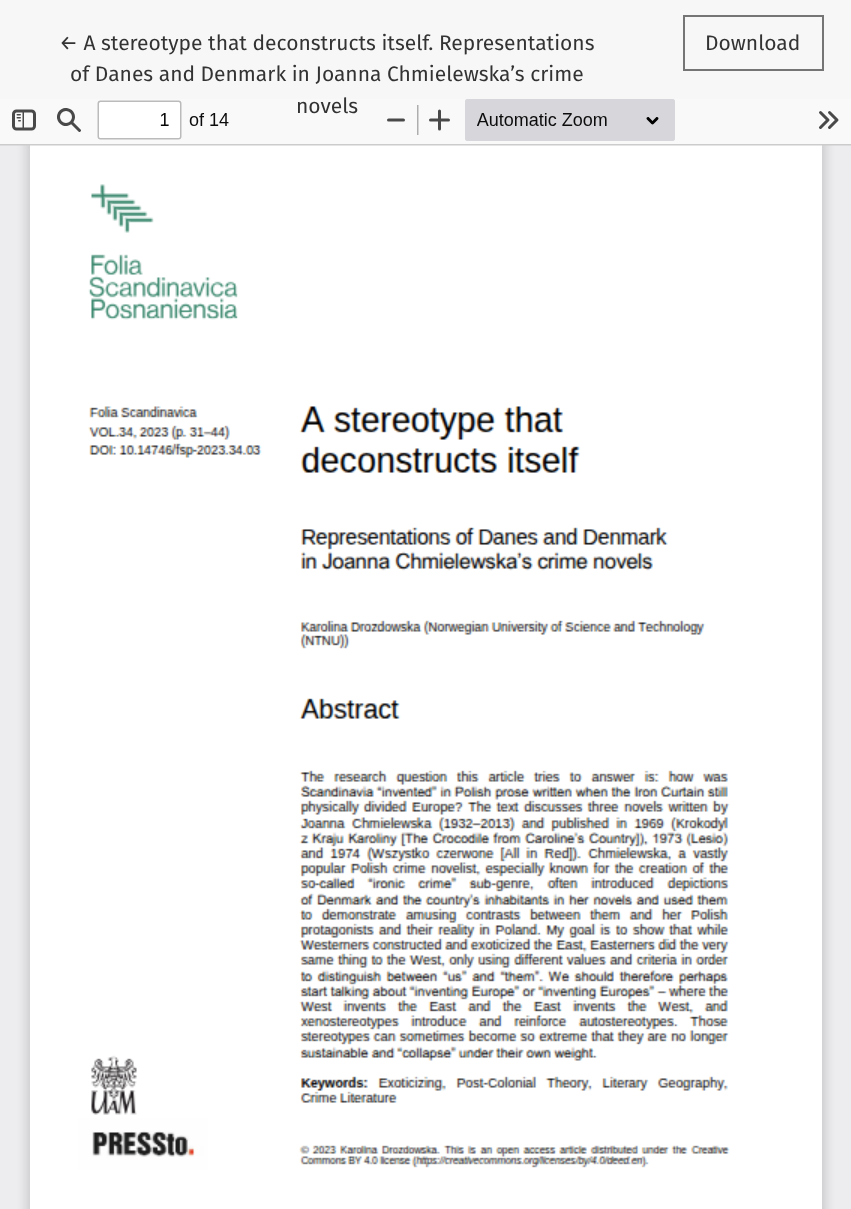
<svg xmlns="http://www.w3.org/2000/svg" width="851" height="1209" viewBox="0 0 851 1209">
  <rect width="100%" height="100%" fill="#f7f7f7"/>
  <path d="M684 16h139v54H684z" fill="none" stroke="#757575" stroke-width="2"/>
  <image x="0" y="99" width="851" height="1110" href="img/1.png"/>
  <g font-family="Fira Sans" font-size="21" fill="#333">
    <text x="59" y="50">← A stereotype that deconstructs itself. Representations</text>
    <text x="70" y="81">of Danes and Denmark in Joanna Chmielewska’s crime</text>
    <text x="296" y="113">novels</text>
    <text x="705" y="50">Download</text>
  </g>
</svg>
